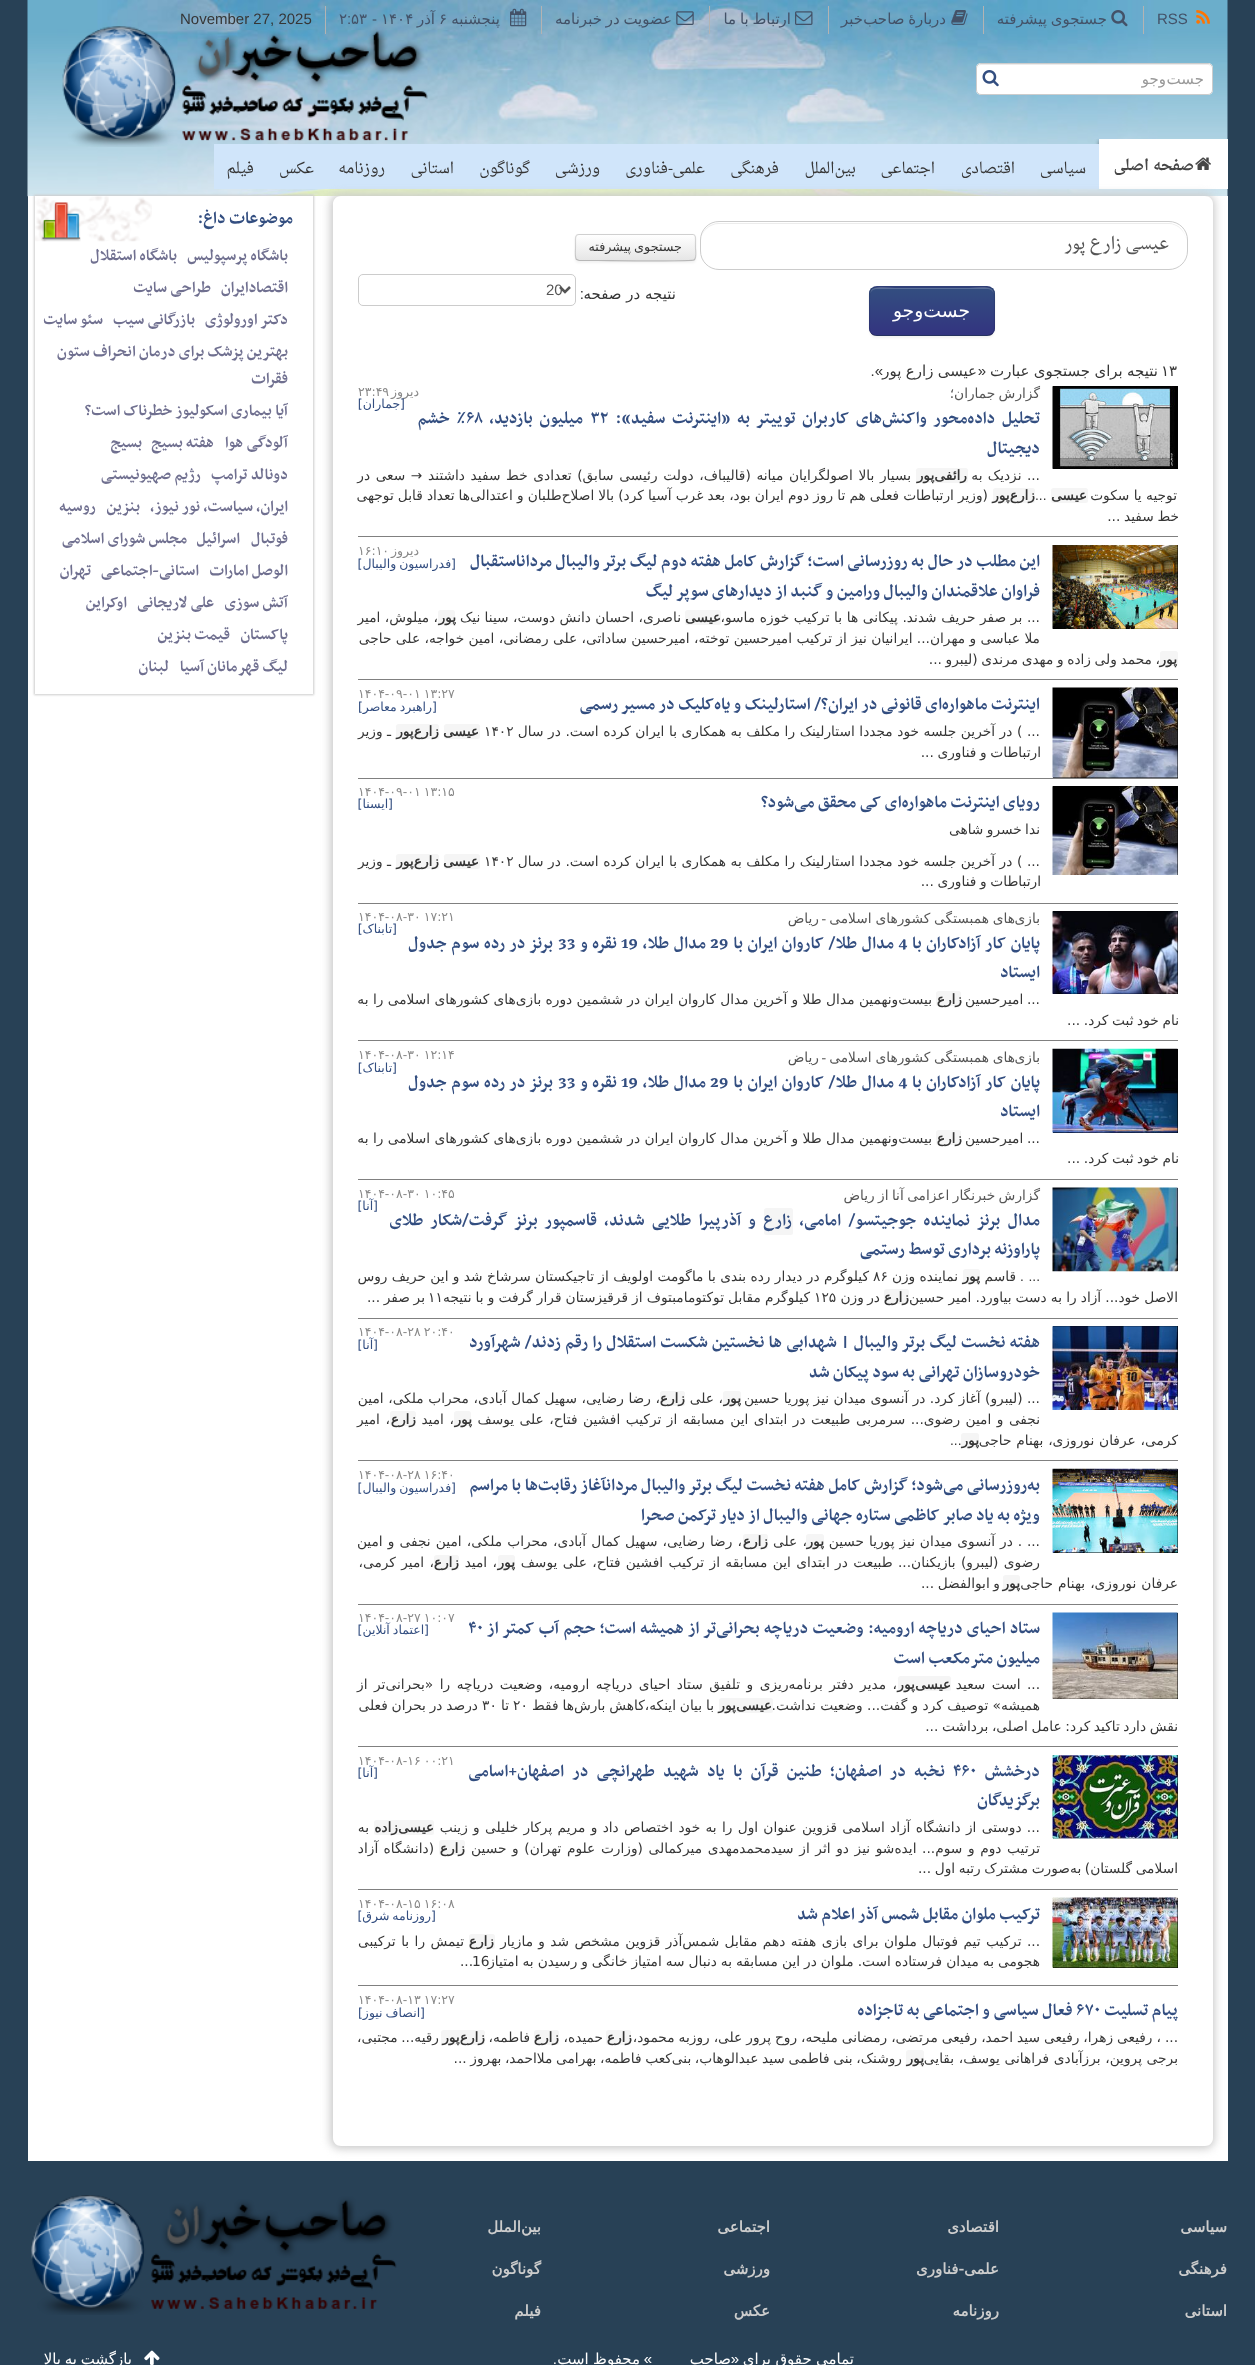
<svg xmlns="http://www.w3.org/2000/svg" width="1255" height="2365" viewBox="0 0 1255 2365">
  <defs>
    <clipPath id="clip1"><path d="M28 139h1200v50H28z"/></clipPath>
    <clipPath id="clip2"><path d="M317 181H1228V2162H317ZM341 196H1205C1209.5 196 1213 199.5 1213 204V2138C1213 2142.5 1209.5 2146 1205 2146H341C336.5 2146 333 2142.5 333 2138V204C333 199.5 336.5 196 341 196Z" clip-rule="evenodd"/></clipPath>
    <clipPath id="clip3"><rect x="575" y="234" width="121" height="27" rx="4"/></clipPath>
    <linearGradient id="g1" gradientUnits="userSpaceOnUse" x1="636" y1="235" x2="636" y2="260"><stop offset="0" stop-color="#fff"/><stop offset="1" stop-color="#e6e6e6"/></linearGradient>
    <clipPath id="clip4"><rect x="869" y="286" width="126" height="50" rx="8"/></clipPath>
    <linearGradient id="g2" gradientUnits="userSpaceOnUse" x1="932" y1="288" x2="932" y2="335"><stop offset="0" stop-color="#334e80"/><stop offset="1" stop-color="#333480"/></linearGradient>
    <clipPath id="clip5"><path d="M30 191H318V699H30ZM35 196H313V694H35Z" clip-rule="evenodd"/></clipPath>
  </defs>
  <rect width="100%" height="100%" fill="#284156"/>
  <image x="27" y="0" width="1201" height="197" href="img/1.png"/>
  <path d="M1143 6h1v28H1143z" fill="#b3b3b3"/>
  <image x="1196" y="10" width="14" height="14" href="img/2.png"/>
  <path d="M983 6h1v28H983z" fill="#b3b3b3"/>
  <image x="1111" y="10" width="17" height="17" href="img/3.png"/>
  <path d="M828 6h1v28H828z" fill="#b3b3b3"/>
  <image x="951" y="10" width="17" height="15" href="img/4.png"/>
  <path d="M709 6h1v28H709z" fill="#b3b3b3"/>
  <image x="795" y="11" width="18" height="14" href="img/5.png"/>
  <path d="M541 6h1v28H541z" fill="#b3b3b3"/>
  <image x="676" y="11" width="18" height="14" href="img/6.png"/>
  <path d="M325 6h1v28H325z" fill="#b3b3b3"/>
  <image x="510" y="8" width="17" height="19" href="img/7.png"/>
  <rect x="976" y="63" width="237" height="32" rx="5" fill="#fff"/>
  <path d="M981 65H1208C1210 65 1211 67 1211 69C1211 66 1210 64 1207 64H982C979 64 978 66 978 69C978 67 979 65 981 65Z" fill="#ececec"/>
  <rect x="976.5" y="63.5" width="236" height="31" rx="4.5" fill="none" stroke="#ccc"/>
  <image x="982" y="70" width="17" height="17" href="img/8.png"/>
  <g clip-path="url(#clip1)">
    <path d="M1100 141h116v45H1100z" fill="#333" filter="blur(2.5px)"/>
  </g>
  <path d="M1099 139h129v50H1099z" fill="#fff"/>
  <image x="1195" y="157" width="16" height="13" href="img/10.png"/>
  <path d="M214 144h885v45H214z" fill="#d0e5fa"/>
  <path d="M28 196h1200v1965H28z" fill="#fff"/>
  <g clip-path="url(#clip2)">
    <rect x="330" y="194" width="885" height="1955" rx="10" fill="#ccc" filter="blur(4px)"/>
  </g>
  <path d="M719 224H1169C1178 224 1186 232 1186 241C1186 231 1178 223 1168 223H719C709 223 701 231 701 241C701 232 709 224 719 224Z" fill="#ececec"/>
  <rect x="700.5" y="221.5" width="487" height="48" rx="18.5" fill="none" stroke="#ccc"/>
  <rect x="575" y="235" width="121" height="28" rx="4" fill="#0000000d" filter="blur(1px)"/>
  <rect x="575" y="234" width="121" height="27" rx="4" fill="#f5f5f5"/>
  <g clip-path="url(#clip3)">
    <path d="M575 235h121v25H575z" fill="url(#g1)"/>
  </g>
  <path d="M694.5 259.5L694 260C692 261.5 607.5 260.5 597.5 260.5H579L576.5 259.5" fill="none" stroke="#00000040" stroke-width="1.2"/>
  <path d="M576.5 259.5C574.5 257.5 575.5 250 575.5 247.5V241C575.5 238.5 575 234.5 579 234.5H692.5C696 234.5 695.5 238.5 695.5 241V247.5C695.5 250 697 257.5 694.5 259.5" fill="none" stroke="#00000026" stroke-width="1.2"/>
  <rect x="358.5" y="274.5" width="217" height="31" rx="4.5" fill="none" stroke="#ccc"/>
  <path d="M560 287L565 292L570 287" fill="none" stroke="#555" stroke-width="2.5"/>
  <rect x="869" y="288" width="126" height="50" rx="8" fill="#0000000d" filter="blur(1px)"/>
  <rect x="869" y="286" width="126" height="50" rx="8" fill="#334480"/>
  <g clip-path="url(#clip4)">
    <path d="M869 288h126v47H869z" fill="url(#g2)"/>
  </g>
  <path d="M876 289H988C991 289 994 292 994 295C994 283 975 288 969 288H895C889 288 870 283 870 295C870 292 873 289 876 289Z" fill="#ffffff33"/>
  <path d="M992.5 333.5C991 335 989.5 335.5 987.5 335.5H876C874.5 335.5 872.5 335 871.5 333.5" fill="none" stroke="#00000040" stroke-width="1.2"/>
  <path d="M871.5 333.5C868.5 331 869.5 326.5 869.5 323V311C869.5 284 866 287 895 287H969C997.5 287 994.5 284 994.5 311V323C994.5 326.5 995 331 992.5 333.5" fill="none" stroke="#0000001a" stroke-width="1.2"/>
  <path d="M358 536h820v1H358z" fill="#808080"/>
  <path d="M1053 386h125v83H1053z" fill="#000"/>
  <image x="1052" y="386" width="123" height="83" href="img/11.png"/>
  <rect x="916" y="468" width="52" height="15" rx="2.5" fill="#f5f5f5"/>
  <rect x="1051" y="488" width="37" height="15" rx="2.5" fill="#f5f5f5"/>
  <rect x="993" y="488" width="42" height="15" rx="2.5" fill="#f5f5f5"/>
  <path d="M358 679h820v1H358z" fill="#808080"/>
  <path d="M1053 545h125v84H1053z" fill="#000"/>
  <image x="1052" y="545" width="126" height="84" href="img/12.png"/>
  <rect x="685" y="610" width="36" height="15" rx="2.5" fill="#f5f5f5"/>
  <rect x="438" y="610" width="17" height="15" rx="2.5" fill="#f5f5f5"/>
  <rect x="1160" y="651" width="18" height="15" rx="2.5" fill="#f5f5f5"/>
  <path d="M358 778h820v1H358z" fill="#808080"/>
  <path d="M1053 688h125v90H1053z" fill="#000"/>
  <image x="1052" y="687" width="126" height="91" href="img/13.png"/>
  <rect x="444" y="724" width="36" height="15" rx="2.5" fill="#f5f5f5"/>
  <rect x="396" y="724" width="43" height="15" rx="2.5" fill="#f5f5f5"/>
  <path d="M358 903h820v1H358z" fill="#808080"/>
  <path d="M1053 786h125v89H1053z" fill="#000"/>
  <image x="1052" y="786" width="126" height="89" href="img/14.png"/>
  <rect x="444" y="854" width="36" height="15" rx="2.5" fill="#f5f5f5"/>
  <rect x="396" y="854" width="43" height="15" rx="2.5" fill="#f5f5f5"/>
  <path d="M358 1040h820v1H358z" fill="#808080"/>
  <path d="M1053 911h125v83H1053z" fill="#000"/>
  <image x="1052" y="911" width="126" height="83" href="img/15.png"/>
  <rect x="936" y="991" width="25" height="15" rx="2.5" fill="#f5f5f5"/>
  <path d="M358 1179h820v1H358z" fill="#808080"/>
  <path d="M1053 1049h125v84H1053z" fill="#000"/>
  <image x="1052" y="1048" width="126" height="85" href="img/16.png"/>
  <rect x="936" y="1130" width="25" height="15" rx="2.5" fill="#f5f5f5"/>
  <path d="M358 1318h820v1H358z" fill="#808080"/>
  <path d="M1177 1188h1v83H1177z" fill="#000"/>
  <image x="1052" y="1187" width="126" height="85" href="img/17.png"/>
  <rect x="764" y="1208" width="29" height="27" rx="2.5" fill="#f5f5f5"/>
  <rect x="963" y="1269" width="17" height="15" rx="2.5" fill="#f5f5f5"/>
  <rect x="884" y="1289" width="25" height="15" rx="2.5" fill="#f5f5f5"/>
  <path d="M358 1460h820v1H358z" fill="#808080"/>
  <path d="M1053 1326h125v84H1053z" fill="#000"/>
  <image x="1052" y="1326" width="126" height="84" href="img/18.png"/>
  <rect x="723" y="1391" width="18" height="15" rx="2.5" fill="#f5f5f5"/>
  <rect x="660" y="1391" width="25" height="15" rx="2.5" fill="#f5f5f5"/>
  <rect x="454" y="1411" width="17" height="15" rx="2.5" fill="#f5f5f5"/>
  <rect x="390" y="1411" width="26" height="15" rx="2.5" fill="#f5f5f5"/>
  <rect x="961" y="1433" width="18" height="15" rx="2.5" fill="#f5f5f5"/>
  <path d="M358 1604h820v1H358z" fill="#808080"/>
  <path d="M1053 1469h125v84H1053z" fill="#000"/>
  <image x="1052" y="1468" width="126" height="85" href="img/19.png"/>
  <rect x="806" y="1534" width="18" height="15" rx="2.5" fill="#f5f5f5"/>
  <rect x="743" y="1534" width="25" height="15" rx="2.5" fill="#f5f5f5"/>
  <rect x="498" y="1555" width="17" height="15" rx="2.5" fill="#f5f5f5"/>
  <rect x="434" y="1555" width="25" height="15" rx="2.5" fill="#f5f5f5"/>
  <rect x="1003" y="1575" width="17" height="15" rx="2.5" fill="#f5f5f5"/>
  <path d="M358 1746h820v1H358z" fill="#808080"/>
  <path d="M1053 1613h125v86H1053z" fill="#000"/>
  <image x="1052" y="1612" width="126" height="87" href="img/20.png"/>
  <rect x="898" y="1676" width="53" height="15" rx="2.5" fill="#f5f5f5"/>
  <rect x="719" y="1698" width="54" height="15" rx="2.5" fill="#f5f5f5"/>
  <path d="M358 1889h820v1H358z" fill="#808080"/>
  <path d="M1053 1755h125v84H1053z" fill="#000"/>
  <image x="1052" y="1755" width="126" height="84" href="img/21.png"/>
  <rect x="374" y="1820" width="60" height="15" rx="2.5" fill="#f5f5f5"/>
  <rect x="439" y="1840" width="26" height="15" rx="2.5" fill="#f5f5f5"/>
  <path d="M358 1985h820v1H358z" fill="#808080"/>
  <path d="M1053 1898h125v70H1053z" fill="#000"/>
  <image x="1052" y="1897" width="126" height="71" href="img/22.png"/>
  <rect x="469" y="1934" width="26" height="15" rx="2.5" fill="#f5f5f5"/>
  <rect x="606" y="2030" width="25" height="15" rx="2.5" fill="#f5f5f5"/>
  <rect x="534" y="2030" width="25" height="15" rx="2.5" fill="#f5f5f5"/>
  <rect x="441" y="2030" width="44" height="15" rx="2.5" fill="#f5f5f5"/>
  <rect x="906" y="2050" width="18" height="15" rx="2.5" fill="#f5f5f5"/>
  <g clip-path="url(#clip5)">
    <path d="M34 195h280v500H34z" fill="#ccc" filter="blur(1px)"/>
  </g>
  <image x="41" y="202" width="40" height="40" href="img/23.png"/>
  <image x="35" y="196" width="117" height="46" href="img/24.png"/>
  <image x="31" y="2195" width="366" height="120" href="img/25.png"/>
  <image x="144" y="2350" width="16" height="15" href="img/26.png"/>
  <text x="1157" y="24" font-family="Liberation Sans" font-size="15" fill="#435268">RSS</text>
  <g font-family="DejaVu Sans" font-size="15" direction="rtl" fill="#435268">
    <text x="1107" y="24" word-spacing="-1">جستجوی پیشرفته</text>
    <text x="946" y="24" word-spacing="-1">دربارهٔ صاحب</text>
    <text x="863" y="24">خبر</text>
    <text x="791" y="24" word-spacing="-1">ارتباط با ما</text>
    <text x="672" y="24" word-spacing="-1">عضویت در خبرنامه</text>
    <text x="500" y="24">پنجشنبه</text>
  </g>
  <text x="439" y="24" font-family="DejaVu Sans" font-size="15" fill="#435268">۶</text>
  <text x="435" y="24" font-family="DejaVu Sans" font-size="15" direction="rtl" fill="#435268">آذر</text>
  <text x="381" y="24" font-family="DejaVu Sans" font-size="15" fill="#435268">۱۴۰۴</text>
  <text x="372" y="24" font-family="Liberation Sans" font-size="15" fill="#435268">-</text>
  <text x="351" y="24" font-family="DejaVu Sans" font-size="15" fill="#435268">۵۳</text>
  <text x="347" y="24" font-family="Liberation Sans" font-size="15" fill="#435268">:</text>
  <text x="339" y="24" font-family="DejaVu Sans" font-size="15" fill="#435268">۲</text>
  <text x="180" y="24" font-family="Liberation Sans" font-size="15" fill="#363636">November 27, 2025</text>
  <g font-family="DejaVu Sans" font-size="15" direction="rtl" fill="#999">
    <text x="1204" y="84">جست</text>
    <text x="1166" y="84">وجو</text>
  </g>
  <image x="62" y="26" width="366" height="121" href="img/9.png"/>
  <text x="1194" y="170" font-family="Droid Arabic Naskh" font-size="15" font-weight="bold" direction="rtl" fill="#464646">صفحه اصلی</text>
  <g font-family="Droid Arabic Naskh" font-size="15" direction="rtl" fill="#363636">
    <text x="1086" y="173">سیاسی</text>
    <text x="1015" y="173">اقتصادی</text>
    <text x="935" y="173">اجتماعی</text>
    <text x="856" y="173">بین‌الملل</text>
    <text x="779" y="173">فرهنگی</text>
    <text x="705" y="173">علمی</text>
  </g>
  <text x="673" y="173" font-family="Liberation Serif" font-size="15" direction="rtl" fill="#363636">-</text>
  <g font-family="Droid Arabic Naskh" font-size="15" direction="rtl" fill="#363636">
    <text x="668" y="173">فناوری</text>
    <text x="600" y="173">ورزشی</text>
    <text x="530" y="173">گوناگون</text>
    <text x="454" y="173">استانی</text>
    <text x="385" y="173">روزنامه</text>
    <text x="314" y="173">عکس</text>
    <text x="254" y="173">فیلم</text>
  </g>
  <text x="1169" y="249" font-family="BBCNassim" font-size="22.5" direction="rtl" fill="#555">عیسی زارع پور</text>
  <text x="682" y="251" word-spacing="-1" font-family="DejaVu Sans" font-size="12.75" direction="rtl" fill="#363636">جستجوی پیشرفته</text>
  <text x="676" y="299" font-family="DejaVu Sans" font-size="15" direction="rtl" fill="#363636">نتیجه در صفحه</text>
  <text x="584" y="299" font-family="Liberation Sans" font-size="15" direction="rtl" fill="#363636">:</text>
  <text x="546" y="295" font-family="Liberation Sans" font-size="15" fill="#555">20</text>
  <text x="970" y="317" font-family="DejaVu Sans" font-size="18.75" direction="rtl" fill="#fff">جست‌وجو</text>
  <text x="1161" y="376" font-family="DejaVu Sans" font-size="15" fill="#363636">۱۳</text>
  <text x="1158" y="376" word-spacing="-0.5" font-family="DejaVu Sans" font-size="15" direction="rtl" fill="#363636">نتیجه برای جستجوی عبارت</text>
  <text x="986" y="376" font-family="Liberation Sans" font-size="15" direction="rtl" fill="#363636">«</text>
  <text x="977" y="376" word-spacing="-0.5" font-family="DejaVu Sans" font-size="15" direction="rtl" fill="#363636">عیسی زارع پور</text>
  <text x="883" y="376" font-family="Liberation Sans" font-size="15" direction="rtl" fill="#363636">».</text>
  <text x="1040" y="398" word-spacing="-1" font-family="DejaVu Sans" font-size="13.75" direction="rtl" fill="#555">گزارش جماران؛</text>
  <text x="419" y="396" font-family="DejaVu Sans" font-size="12.5" direction="rtl" fill="#888">دیروز</text>
  <text x="358" y="396" font-family="DejaVu Sans" font-size="12.5" fill="#888">۲۳:۴۹</text>
  <text x="405" y="408" font-family="DejaVu Sans" font-size="12.5" direction="rtl" fill="#334e80">[جماران]</text>
  <text x="1040" y="423" word-spacing="3.25" font-family="BBCNassim" font-size="19.5" font-weight="bold" direction="rtl" fill="#334e80">تحلیل داده‌محور واکنش‌های کاربران توییتر به «اینترنت سفید»:</text>
  <text x="590" y="423" font-family="BBCNassim" font-size="19.5" font-weight="bold" fill="#334e80">۳۲</text>
  <text x="583" y="423" word-spacing="3.25" font-family="BBCNassim" font-size="19.5" font-weight="bold" direction="rtl" fill="#334e80">میلیون بازدید،</text>
  <text x="466" y="423" font-family="BBCNassim" font-size="19.5" font-weight="bold" fill="#334e80">۶۸</text>
  <g font-family="BBCNassim" font-size="19.5" font-weight="bold" direction="rtl" fill="#334e80">
    <text x="466" y="423" word-spacing="3.25">٪ خشم</text>
    <text x="1040" y="453">دیجیتال</text>
  </g>
  <text x="1040" y="480" word-spacing="1" font-family="DejaVu Sans" font-size="13.75" direction="rtl" fill="#363636">... نزدیک به</text>
  <text x="967" y="480" font-family="DejaVu Sans" font-size="13.75" font-weight="bold" direction="rtl" fill="#363636">رائفی‌پور</text>
  <g font-family="DejaVu Sans" font-size="13.75" direction="rtl" fill="#363636">
    <text x="911" y="480" word-spacing="1.25">بسیار بالا اصولگرایان میانه (قالیباف، دولت رئیسی سابق) تعدادی خط سفید داشتند → سعی در</text>
    <text x="1177" y="500">توجیه یا سکوت</text>
  </g>
  <text x="1087" y="500" font-family="DejaVu Sans" font-size="13.75" font-weight="bold" direction="rtl" fill="#363636">عیسی</text>
  <text x="1035" y="500" font-family="Liberation Sans" font-size="13.75" fill="#363636">...</text>
  <text x="1035" y="500" font-family="DejaVu Sans" font-size="13.75" font-weight="bold" direction="rtl" fill="#363636">زارع‌پور</text>
  <g font-family="DejaVu Sans" font-size="13.75" direction="rtl" fill="#363636">
    <text x="988" y="500" word-spacing="-0.3">(وزیر ارتباطات فعلی هم تا روز دوم ایران بود، بعد غرب آسیا کرد) بالا اصلاح‌طلبان و اعتدالی‌ها تعداد قابل توجهی</text>
    <text x="1179" y="521" word-spacing="-0.75">خط سفید ...</text>
  </g>
  <g font-family="BBCNassim" font-size="19.5" font-weight="bold" direction="rtl" fill="#334e80">
    <text x="1040" y="566">این مطلب در حال به روزرسانی است؛ گزارش کامل هفته دوم لیگ برتر والیبال مرداناستقبال</text>
    <text x="1040" y="596">فراوان علاقمندان والیبال ورامین و گنبد از دیدارهای سوپر لیگ</text>
  </g>
  <text x="419" y="555" font-family="DejaVu Sans" font-size="12.5" direction="rtl" fill="#888">دیروز</text>
  <text x="358" y="555" font-family="DejaVu Sans" font-size="12.5" fill="#888">۱۶:۱۰</text>
  <text x="456" y="568" word-spacing="-1" font-family="DejaVu Sans" font-size="12.5" direction="rtl" fill="#334e80">[فدراسیون والیبال]</text>
  <text x="1040" y="622" word-spacing="0.25" font-family="DejaVu Sans" font-size="13.75" direction="rtl" fill="#363636">... بر صفر حریف شدند. پیکانی ها با ترکیب خوزه ماسو،</text>
  <text x="721" y="622" font-family="DejaVu Sans" font-size="13.75" font-weight="bold" direction="rtl" fill="#363636">عیسی</text>
  <text x="681" y="622" font-family="DejaVu Sans" font-size="13.75" direction="rtl" fill="#363636">ناصری، احسان دانش دوست، سینا نیک</text>
  <text x="456" y="622" font-family="DejaVu Sans" font-size="13.75" font-weight="bold" direction="rtl" fill="#363636">پور</text>
  <g font-family="DejaVu Sans" font-size="13.75" direction="rtl" fill="#363636">
    <text x="438" y="622">، میلوش، امیر</text>
    <text x="1040" y="643">ملا عباسی و مهران... ایرانیان نیز از ترکیب امیرحسین توخته، امیرحسین ساداتی، علی رمضانی، امین خواجه، علی حاجی</text>
  </g>
  <text x="1177" y="664" font-family="DejaVu Sans" font-size="13.75" font-weight="bold" direction="rtl" fill="#363636">پور</text>
  <text x="1160" y="664" word-spacing="-0.75" font-family="DejaVu Sans" font-size="13.75" direction="rtl" fill="#363636">، محمد ولی زاده و مهدی مرندی (لیبرو ...</text>
  <text x="358" y="698" word-spacing="-1" font-family="DejaVu Sans" font-size="12.5" fill="#888">۱۴۰۴-۰۹-۰۱ ۱۳:۲۷</text>
  <text x="1040" y="709" font-family="BBCNassim" font-size="19.5" font-weight="bold" direction="rtl" fill="#334e80">اینترنت ماهواره‌ای قانونی در ایران؟/ استارلینک و یاه‌کلیک در مسیر رسمی</text>
  <text x="437" y="711" word-spacing="-1" font-family="DejaVu Sans" font-size="12.5" direction="rtl" fill="#334e80">[راهبرد معاصر]</text>
  <text x="1040" y="736" word-spacing="0.2" font-family="DejaVu Sans" font-size="13.75" direction="rtl" fill="#363636">... ) در آخرین جلسه خود مجددا استارلینک را مکلف به همکاری با ایران کرده است. در سال</text>
  <text x="484" y="736" font-family="DejaVu Sans" font-size="13.75" fill="#363636">۱۴۰۲</text>
  <g font-family="DejaVu Sans" font-size="13.75" font-weight="bold" direction="rtl" fill="#363636">
    <text x="479" y="736">عیسی</text>
    <text x="439" y="736">زارع‌پور</text>
  </g>
  <g font-family="DejaVu Sans" font-size="13.75" direction="rtl" fill="#363636">
    <text x="391" y="736">ـ‌ وزیر</text>
    <text x="1041" y="757" word-spacing="-0.75">ارتباطات و فناوری ...</text>
  </g>
  <text x="358" y="796" word-spacing="-1" font-family="DejaVu Sans" font-size="12.5" fill="#888">۱۴۰۴-۰۹-۰۱ ۱۳:۱۵</text>
  <text x="1040" y="807" font-family="BBCNassim" font-size="19.5" font-weight="bold" direction="rtl" fill="#334e80">رویای اینترنت ماهواره‌ای کی محقق می‌شود؟</text>
  <text x="393" y="808" font-family="DejaVu Sans" font-size="12.5" direction="rtl" fill="#334e80">[ایسنا]</text>
  <g font-family="DejaVu Sans" font-size="13.75" direction="rtl" fill="#363636">
    <text x="1040" y="834" word-spacing="-1">ندا خسرو شاهی</text>
    <text x="1040" y="866" word-spacing="0.2">... ) در آخرین جلسه خود مجددا استارلینک را مکلف به همکاری با ایران کرده است. در سال</text>
  </g>
  <text x="484" y="866" font-family="DejaVu Sans" font-size="13.75" fill="#363636">۱۴۰۲</text>
  <g font-family="DejaVu Sans" font-size="13.75" font-weight="bold" direction="rtl" fill="#363636">
    <text x="479" y="866">عیسی</text>
    <text x="439" y="866">زارع‌پور</text>
  </g>
  <g font-family="DejaVu Sans" font-size="13.75" direction="rtl" fill="#363636">
    <text x="391" y="866">ـ‌ وزیر</text>
    <text x="1041" y="886" word-spacing="-0.75">ارتباطات و فناوری ...</text>
  </g>
  <g font-family="DejaVu Sans" font-size="13.75" direction="rtl" fill="#555">
    <text x="1040" y="923">بازی</text>
    <text x="1015" y="923" word-spacing="-0.5">های همبستگی کشورهای اسلامی</text>
  </g>
  <text x="826" y="923" font-family="Liberation Serif" font-size="13.75" direction="rtl" fill="#555">-</text>
  <text x="819" y="923" font-family="DejaVu Sans" font-size="13.75" direction="rtl" fill="#555">ریاض</text>
  <text x="358" y="921" word-spacing="-1" font-family="DejaVu Sans" font-size="12.5" fill="#888">۱۴۰۴-۰۸-۳۰ ۱۷:۲۱</text>
  <text x="397" y="933" font-family="DejaVu Sans" font-size="12.5" direction="rtl" fill="#334e80">[تابناک]</text>
  <text x="1040" y="948" word-spacing="1" font-family="BBCNassim" font-size="19.5" font-weight="bold" direction="rtl" fill="#334e80">پایان کار آزادکاران با</text>
  <text x="898" y="948" font-family="BBCNassim" font-size="19.5" font-weight="bold" fill="#334e80">4</text>
  <text x="894" y="948" word-spacing="1" font-family="BBCNassim" font-size="19.5" font-weight="bold" direction="rtl" fill="#334e80">مدال طلا/ کاروان ایران با</text>
  <text x="710" y="948" font-family="BBCNassim" font-size="19.5" font-weight="bold" fill="#334e80">29</text>
  <text x="706" y="948" word-spacing="1" font-family="BBCNassim" font-size="19.5" font-weight="bold" direction="rtl" fill="#334e80">مدال طلا،</text>
  <text x="621" y="948" font-family="BBCNassim" font-size="19.5" font-weight="bold" fill="#334e80">19</text>
  <text x="617" y="948" word-spacing="1" font-family="BBCNassim" font-size="19.5" font-weight="bold" direction="rtl" fill="#334e80">نقره و</text>
  <text x="558" y="948" font-family="BBCNassim" font-size="19.5" font-weight="bold" fill="#334e80">33</text>
  <g font-family="BBCNassim" font-size="19.5" font-weight="bold" direction="rtl" fill="#334e80">
    <text x="553" y="948" word-spacing="1">برنز در رده سوم جدول</text>
    <text x="1040" y="977">ایستاد</text>
  </g>
  <text x="1040" y="1004" word-spacing="-0.75" font-family="DejaVu Sans" font-size="13.75" direction="rtl" fill="#363636">... امیرحسین</text>
  <text x="962" y="1004" font-family="DejaVu Sans" font-size="13.75" font-weight="bold" direction="rtl" fill="#363636">زارع</text>
  <g font-family="DejaVu Sans" font-size="13.75" direction="rtl" fill="#363636">
    <text x="932" y="1004">بیست‌ونهمین مدال طلا و آخرین مدال کاروان ایران در ششمین دوره بازی‌های کشورهای اسلامی را به</text>
    <text x="1179" y="1025" word-spacing="-0.75">نام خود ثبت کرد. ...</text>
  </g>
  <g font-family="DejaVu Sans" font-size="13.75" direction="rtl" fill="#555">
    <text x="1040" y="1062">بازی</text>
    <text x="1015" y="1062" word-spacing="-0.5">های همبستگی کشورهای اسلامی</text>
  </g>
  <text x="826" y="1062" font-family="Liberation Serif" font-size="13.75" direction="rtl" fill="#555">-</text>
  <text x="819" y="1062" font-family="DejaVu Sans" font-size="13.75" direction="rtl" fill="#555">ریاض</text>
  <text x="358" y="1059" word-spacing="-1" font-family="DejaVu Sans" font-size="12.5" fill="#888">۱۴۰۴-۰۸-۳۰ ۱۲:۱۴</text>
  <text x="397" y="1072" font-family="DejaVu Sans" font-size="12.5" direction="rtl" fill="#334e80">[تابناک]</text>
  <text x="1040" y="1087" word-spacing="1" font-family="BBCNassim" font-size="19.5" font-weight="bold" direction="rtl" fill="#334e80">پایان کار آزادکاران با</text>
  <text x="898" y="1087" font-family="BBCNassim" font-size="19.5" font-weight="bold" fill="#334e80">4</text>
  <text x="894" y="1087" word-spacing="1" font-family="BBCNassim" font-size="19.5" font-weight="bold" direction="rtl" fill="#334e80">مدال طلا/ کاروان ایران با</text>
  <text x="710" y="1087" font-family="BBCNassim" font-size="19.5" font-weight="bold" fill="#334e80">29</text>
  <text x="706" y="1087" word-spacing="1" font-family="BBCNassim" font-size="19.5" font-weight="bold" direction="rtl" fill="#334e80">مدال طلا،</text>
  <text x="621" y="1087" font-family="BBCNassim" font-size="19.5" font-weight="bold" fill="#334e80">19</text>
  <text x="617" y="1087" word-spacing="1" font-family="BBCNassim" font-size="19.5" font-weight="bold" direction="rtl" fill="#334e80">نقره و</text>
  <text x="558" y="1087" font-family="BBCNassim" font-size="19.5" font-weight="bold" fill="#334e80">33</text>
  <g font-family="BBCNassim" font-size="19.5" font-weight="bold" direction="rtl" fill="#334e80">
    <text x="553" y="1087" word-spacing="1">برنز در رده سوم جدول</text>
    <text x="1040" y="1116">ایستاد</text>
  </g>
  <text x="1040" y="1143" word-spacing="-0.75" font-family="DejaVu Sans" font-size="13.75" direction="rtl" fill="#363636">... امیرحسین</text>
  <text x="962" y="1143" font-family="DejaVu Sans" font-size="13.75" font-weight="bold" direction="rtl" fill="#363636">زارع</text>
  <g font-family="DejaVu Sans" font-size="13.75" direction="rtl" fill="#363636">
    <text x="932" y="1143">بیست‌ونهمین مدال طلا و آخرین مدال کاروان ایران در ششمین دوره بازی‌های کشورهای اسلامی را به</text>
    <text x="1179" y="1163" word-spacing="-0.75">نام خود ثبت کرد. ...</text>
  </g>
  <text x="1040" y="1200" word-spacing="-1" font-family="DejaVu Sans" font-size="13.75" direction="rtl" fill="#555">گزارش خبرنگار اعزامی آنا از ریاض</text>
  <text x="358" y="1198" word-spacing="-1" font-family="DejaVu Sans" font-size="12.5" fill="#888">۱۴۰۴-۰۸-۳۰ ۱۰:۴۵</text>
  <text x="378" y="1210" font-family="DejaVu Sans" font-size="12.5" direction="rtl" fill="#334e80">[آنا]</text>
  <g font-family="BBCNassim" font-size="19.5" font-weight="bold" direction="rtl" fill="#334e80">
    <text x="1040" y="1225" word-spacing="3.75">مدال برنز نماینده جوجیتسو/ امامی،</text>
    <text x="792" y="1225">زارع</text>
    <text x="756" y="1225" word-spacing="3.75">و آذرپیرا طلایی شدند، قاسمپور برنز گرفت/شکار طلای</text>
    <text x="1040" y="1254">پاراوزنه برداری توسط رستمی</text>
  </g>
  <text x="1040" y="1281" word-spacing="1" font-family="Liberation Sans" font-size="13.75" direction="rtl" fill="#363636">... .</text>
  <text x="1016" y="1281" font-family="DejaVu Sans" font-size="13.75" direction="rtl" fill="#363636">قاسم</text>
  <text x="980" y="1281" font-family="DejaVu Sans" font-size="13.75" font-weight="bold" direction="rtl" fill="#363636">پور</text>
  <text x="958" y="1281" font-family="DejaVu Sans" font-size="13.75" direction="rtl" fill="#363636">نماینده وزن</text>
  <text x="873" y="1281" font-family="DejaVu Sans" font-size="13.75" fill="#363636">۸۶</text>
  <g font-family="DejaVu Sans" font-size="13.75" direction="rtl" fill="#363636">
    <text x="869" y="1281">کیلوگرم در دیدار رده بندی با ماگومت اولویف از تاجیکستان سرشاخ شد و این حریف روس</text>
    <text x="1178" y="1302" word-spacing="-0.25">الاصل خود... آزاد را به دست بیاورد. امیر حسین</text>
  </g>
  <text x="909" y="1302" font-family="DejaVu Sans" font-size="13.75" font-weight="bold" direction="rtl" fill="#363636">زارع</text>
  <text x="880" y="1302" word-spacing="-1" font-family="DejaVu Sans" font-size="13.75" direction="rtl" fill="#363636">در وزن</text>
  <text x="814" y="1302" font-family="DejaVu Sans" font-size="13.75" fill="#363636">۱۲۵</text>
  <text x="810" y="1302" word-spacing="-0.25" font-family="DejaVu Sans" font-size="13.75" direction="rtl" fill="#363636">کیلوگرم مقابل توکتومامبتوف از قرقیزستان قرار گرفت و با نتیجه</text>
  <text x="428" y="1302" font-family="DejaVu Sans" font-size="13.75" fill="#363636">۱۱</text>
  <text x="425" y="1302" word-spacing="-0.75" font-family="DejaVu Sans" font-size="13.75" direction="rtl" fill="#363636">بر صفر ...</text>
  <text x="358" y="1336" word-spacing="-1" font-family="DejaVu Sans" font-size="12.5" fill="#888">۱۴۰۴-۰۸-۲۸ ۲۰:۴۰</text>
  <g font-family="BBCNassim" font-size="19.5" font-weight="bold" direction="rtl" fill="#334e80">
    <text x="1040" y="1347" word-spacing="0.6">هفته نخست لیگ برتر والیبال | شهدابی ها نخستین شکست استقلال را رقم زدند/ شهرآورد</text>
    <text x="1040" y="1377">خودروسازان تهرانی به سود پیکان شد</text>
  </g>
  <text x="378" y="1349" font-family="DejaVu Sans" font-size="12.5" direction="rtl" fill="#334e80">[آنا]</text>
  <text x="1040" y="1403" font-family="DejaVu Sans" font-size="13.75" direction="rtl" fill="#363636">... (لیبرو) آغاز کرد. در آنسوی میدان نیز پوریا حسین</text>
  <text x="741" y="1403" font-family="DejaVu Sans" font-size="13.75" font-weight="bold" direction="rtl" fill="#363636">پور</text>
  <text x="723" y="1403" word-spacing="0.25" font-family="DejaVu Sans" font-size="13.75" direction="rtl" fill="#363636">، علی</text>
  <text x="685" y="1403" font-family="DejaVu Sans" font-size="13.75" font-weight="bold" direction="rtl" fill="#363636">زارع</text>
  <g font-family="DejaVu Sans" font-size="13.75" direction="rtl" fill="#363636">
    <text x="660" y="1403" word-spacing="0.25">، رضا رضایی، سهیل کمال آبادی، محراب ملکی، امین</text>
    <text x="1040" y="1424" word-spacing="1.1">نجفی و امین رضوی... سرمربی طبیعت در ابتدای این مسابقه از ترکیب افشین فتاح، علی یوسف</text>
  </g>
  <text x="472" y="1424" font-family="DejaVu Sans" font-size="13.75" font-weight="bold" direction="rtl" fill="#363636">پور</text>
  <text x="454" y="1424" word-spacing="1.25" font-family="DejaVu Sans" font-size="13.75" direction="rtl" fill="#363636">، امید</text>
  <text x="416" y="1424" font-family="DejaVu Sans" font-size="13.75" font-weight="bold" direction="rtl" fill="#363636">زارع</text>
  <g font-family="DejaVu Sans" font-size="13.75" direction="rtl" fill="#363636">
    <text x="390" y="1424" word-spacing="1.25">، امیر</text>
    <text x="1178" y="1445" word-spacing="0.5">کرمی، عرفان نوروزی، بهنام حاجی</text>
  </g>
  <text x="979" y="1445" font-family="DejaVu Sans" font-size="13.75" font-weight="bold" direction="rtl" fill="#363636">پور</text>
  <text x="950" y="1445" font-family="Liberation Sans" font-size="13.75" fill="#363636">...</text>
  <text x="358" y="1479" word-spacing="-1" font-family="DejaVu Sans" font-size="12.5" fill="#888">۱۴۰۴-۰۸-۲۸ ۱۶:۴۰</text>
  <g font-family="BBCNassim" font-size="19.5" font-weight="bold" direction="rtl" fill="#334e80">
    <text x="1040" y="1490">به‌روزرسانی می‌شود؛ گزارش کامل هفته نخست لیگ برتر والیبال مردانآغاز رقابت‌ها با مراسم</text>
    <text x="1040" y="1520">ویژه به یاد صابر کاظمی ستاره جهانی والیبال از دیار ترکمن صحرا</text>
  </g>
  <text x="456" y="1492" word-spacing="-1" font-family="DejaVu Sans" font-size="12.5" direction="rtl" fill="#334e80">[فدراسیون والیبال]</text>
  <text x="1040" y="1546" word-spacing="0.5" font-family="DejaVu Sans" font-size="13.75" direction="rtl" fill="#363636">... . در آنسوی میدان نیز پوریا حسین</text>
  <text x="824" y="1546" font-family="DejaVu Sans" font-size="13.75" font-weight="bold" direction="rtl" fill="#363636">پور</text>
  <text x="807" y="1546" word-spacing="1" font-family="DejaVu Sans" font-size="13.75" direction="rtl" fill="#363636">، علی</text>
  <text x="768" y="1546" font-family="DejaVu Sans" font-size="13.75" font-weight="bold" direction="rtl" fill="#363636">زارع</text>
  <g font-family="DejaVu Sans" font-size="13.75" direction="rtl" fill="#363636">
    <text x="742" y="1546" word-spacing="0.75">، رضا رضایی، سهیل کمال آبادی، محراب ملکی، امین نجفی و امین</text>
    <text x="1040" y="1567" word-spacing="1">رضوی (لیبرو) بازیکنان... طبیعت در ابتدای این مسابقه از ترکیب افشین فتاح، علی یوسف</text>
  </g>
  <text x="515" y="1567" font-family="DejaVu Sans" font-size="13.75" font-weight="bold" direction="rtl" fill="#363636">پور</text>
  <text x="497" y="1567" word-spacing="1" font-family="DejaVu Sans" font-size="13.75" direction="rtl" fill="#363636">، امید</text>
  <text x="459" y="1567" font-family="DejaVu Sans" font-size="13.75" font-weight="bold" direction="rtl" fill="#363636">زارع</text>
  <g font-family="DejaVu Sans" font-size="13.75" direction="rtl" fill="#363636">
    <text x="434" y="1567" word-spacing="1">، امیر کرمی،</text>
    <text x="1178" y="1588" word-spacing="0.75">عرفان نوروزی، بهنام حاجی</text>
  </g>
  <text x="1020" y="1588" font-family="DejaVu Sans" font-size="13.75" font-weight="bold" direction="rtl" fill="#363636">پور</text>
  <text x="1000" y="1588" word-spacing="-0.75" font-family="DejaVu Sans" font-size="13.75" direction="rtl" fill="#363636">و ابوالفضل ...</text>
  <text x="358" y="1622" word-spacing="-1" font-family="DejaVu Sans" font-size="12.5" fill="#888">۱۴۰۴-۰۸-۲۷ ۱۰:۰۷</text>
  <text x="1040" y="1633" word-spacing="0.7" font-family="BBCNassim" font-size="19.5" font-weight="bold" direction="rtl" fill="#334e80">ستاد احیای دریاچه ارومیه: وضعیت دریاچه بحرانی‌تر از همیشه است؛ حجم آب کمتر از</text>
  <text x="468" y="1633" font-family="BBCNassim" font-size="19.5" font-weight="bold" fill="#334e80">۴۰</text>
  <text x="1040" y="1663" font-family="BBCNassim" font-size="19.5" font-weight="bold" direction="rtl" fill="#334e80">میلیون مترمکعب است</text>
  <text x="429" y="1634" word-spacing="-1" font-family="DejaVu Sans" font-size="12.5" direction="rtl" fill="#334e80">[اعتماد آنلاین]</text>
  <text x="1040" y="1689" word-spacing="2" font-family="DejaVu Sans" font-size="13.75" direction="rtl" fill="#363636">... است سعید</text>
  <text x="951" y="1689" font-family="DejaVu Sans" font-size="13.75" font-weight="bold" direction="rtl" fill="#363636">عیسی‌پور</text>
  <g font-family="DejaVu Sans" font-size="13.75" direction="rtl" fill="#363636">
    <text x="897" y="1689" word-spacing="2.1">، مدیر دفتر برنامه‌ریزی و تلفیق ستاد احیای دریاچه ارومیه، وضعیت دریاچه را «بحرانی‌تر از</text>
    <text x="1040" y="1710">همیشه» توصیف کرد و گفت... وضعیت نداشت.</text>
  </g>
  <text x="772" y="1710" font-family="DejaVu Sans" font-size="13.75" font-weight="bold" direction="rtl" fill="#363636">عیسی‌پور</text>
  <text x="714" y="1710" word-spacing="-0.5" font-family="DejaVu Sans" font-size="13.75" direction="rtl" fill="#363636">با بیان اینکه،کاهش بارش‌ها فقط</text>
  <text x="513" y="1710" font-family="DejaVu Sans" font-size="13.75" fill="#363636">۲۰</text>
  <text x="509" y="1710" font-family="DejaVu Sans" font-size="13.75" direction="rtl" fill="#363636">تا</text>
  <text x="482" y="1710" font-family="DejaVu Sans" font-size="13.75" fill="#363636">۳۰</text>
  <g font-family="DejaVu Sans" font-size="13.75" direction="rtl" fill="#363636">
    <text x="478" y="1710" word-spacing="-0.5">درصد در بحران فعلی</text>
    <text x="1178" y="1731" word-spacing="-0.75">نقش دارد تاکید کرد: عامل اصلی، برداشت ...</text>
  </g>
  <text x="358" y="1765" word-spacing="-1" font-family="DejaVu Sans" font-size="12.5" fill="#888">۱۴۰۴-۰۸-۱۶ ۰۰:۲۱</text>
  <text x="1040" y="1776" font-family="BBCNassim" font-size="19.5" font-weight="bold" direction="rtl" fill="#334e80">درخشش</text>
  <text x="953" y="1776" font-family="BBCNassim" font-size="19.5" font-weight="bold" fill="#334e80">۴۶۰</text>
  <g font-family="BBCNassim" font-size="19.5" font-weight="bold" direction="rtl" fill="#334e80">
    <text x="945" y="1776" word-spacing="4.75">نخبه در اصفهان؛ طنین قرآن با یاد شهید طهرانچی در اصفهان+اسامی</text>
    <text x="1040" y="1805">برگزیدگان</text>
  </g>
  <text x="378" y="1777" font-family="DejaVu Sans" font-size="12.5" direction="rtl" fill="#334e80">[آنا]</text>
  <text x="1040" y="1832" word-spacing="0.9" font-family="DejaVu Sans" font-size="13.75" direction="rtl" fill="#363636">... دوستی از دانشگاه آزاد اسلامی قزوین عنوان اول را به خود اختصاص داد و مریم پرکار خلیلی و زینب</text>
  <text x="434" y="1832" font-family="DejaVu Sans" font-size="13.75" font-weight="bold" direction="rtl" fill="#363636">عیسی‌زاده</text>
  <g font-family="DejaVu Sans" font-size="13.75" direction="rtl" fill="#363636">
    <text x="369" y="1832">به</text>
    <text x="1040" y="1853" word-spacing="1.25">ترتیب دوم و سوم... ایده‌شو نیز دو اثر از سیدمحمدمهدی میرکمالی (وزارت علوم تهران) و حسین</text>
  </g>
  <text x="465" y="1853" font-family="DejaVu Sans" font-size="13.75" font-weight="bold" direction="rtl" fill="#363636">زارع</text>
  <g font-family="DejaVu Sans" font-size="13.75" direction="rtl" fill="#363636">
    <text x="434" y="1853" word-spacing="1">(دانشگاه آزاد</text>
    <text x="1178" y="1873" word-spacing="-0.75">اسلامی گلستان) به‌صورت مشترک رتبه اول ...</text>
  </g>
  <text x="358" y="1908" word-spacing="-1" font-family="DejaVu Sans" font-size="12.5" fill="#888">۱۴۰۴-۰۸-۱۵ ۱۶:۰۸</text>
  <text x="1040" y="1919" font-family="BBCNassim" font-size="19.5" font-weight="bold" direction="rtl" fill="#334e80">ترکیب ملوان مقابل شمس آذر اعلام شد</text>
  <text x="436" y="1920" word-spacing="-1" font-family="DejaVu Sans" font-size="12.5" direction="rtl" fill="#334e80">[روزنامه شرق]</text>
  <text x="1040" y="1946" word-spacing="1" font-family="DejaVu Sans" font-size="13.75" direction="rtl" fill="#363636">... ترکیب تیم فوتبال ملوان برای بازی هفته دهم مقابل شمس‌آذر قزوین مشخص شد و مازیار</text>
  <text x="494" y="1946" font-family="DejaVu Sans" font-size="13.75" font-weight="bold" direction="rtl" fill="#363636">زارع</text>
  <text x="464" y="1946" word-spacing="1.1" font-family="DejaVu Sans" font-size="13.75" direction="rtl" fill="#363636">تیمش را با ترکیبی</text>
  <text x="472" y="1966" font-family="DejaVu Sans" font-size="13.75" fill="#363636">16</text>
  <text x="1040" y="1966" word-spacing="-0.4" font-family="DejaVu Sans" font-size="13.75" direction="rtl" fill="#363636">هجومی به میدان فرستاده است. ملوان در این مسابقه به دنبال سه امتیاز خانگی و رسیدن به امتیاز</text>
  <text x="460" y="1966" font-family="DejaVu Sans" font-size="13.75" fill="#363636">...</text>
  <text x="358" y="2004" word-spacing="-1" font-family="DejaVu Sans" font-size="12.5" fill="#888">۱۴۰۴-۰۸-۱۳ ۱۷:۲۷</text>
  <text x="1178" y="2015" font-family="BBCNassim" font-size="19.5" font-weight="bold" direction="rtl" fill="#334e80">پیام تسلیت</text>
  <text x="1076" y="2015" font-family="BBCNassim" font-size="19.5" font-weight="bold" fill="#334e80">۶۷۰</text>
  <text x="1076" y="2015" font-family="BBCNassim" font-size="19.5" font-weight="bold" direction="rtl" fill="#334e80">‌ فعال سیاسی و اجتماعی به تاجزاده</text>
  <text x="425" y="2017" word-spacing="-1" font-family="DejaVu Sans" font-size="12.5" direction="rtl" fill="#334e80">[انصاف نیوز]</text>
  <text x="1178" y="2042" word-spacing="-0.4" font-family="DejaVu Sans" font-size="13.75" direction="rtl" fill="#363636">... ، رفیعی زهرا، رفیعی سید احمد، رفیعی مرتضی، رمضانی ملیحه، روح پرور علی، روزبه محمود،</text>
  <text x="632" y="2042" font-family="DejaVu Sans" font-size="13.75" font-weight="bold" direction="rtl" fill="#363636">زارع</text>
  <text x="603" y="2042" font-family="DejaVu Sans" font-size="13.75" direction="rtl" fill="#363636">حمیده،</text>
  <text x="559" y="2042" font-family="DejaVu Sans" font-size="13.75" font-weight="bold" direction="rtl" fill="#363636">زارع</text>
  <text x="530" y="2042" font-family="DejaVu Sans" font-size="13.75" direction="rtl" fill="#363636">فاطمه،</text>
  <text x="485" y="2042" font-family="DejaVu Sans" font-size="13.75" font-weight="bold" direction="rtl" fill="#363636">زارع‌پور</text>
  <g font-family="DejaVu Sans" font-size="13.75" direction="rtl" fill="#363636">
    <text x="439" y="2042" word-spacing="-0.75">رقیه... مجتبی،</text>
    <text x="1178" y="2063" word-spacing="0.25">برجی پروین، برزآبادی فراهانی یوسف، بقايی</text>
  </g>
  <text x="924" y="2063" font-family="DejaVu Sans" font-size="13.75" font-weight="bold" direction="rtl" fill="#363636">پور</text>
  <text x="902" y="2063" word-spacing="-0.75" font-family="DejaVu Sans" font-size="13.75" direction="rtl" fill="#363636">روشنک، بنی فاطمی سید عبدالوهاب، بنی‌کعب فاطمه، بهرامی ملااحمد، بهروز ...</text>
  <text x="293" y="223" font-family="BBCNassim" font-size="19.5" font-weight="bold" direction="rtl" fill="#334e80">موضوعات داغ:</text>
  <g font-family="BBCNassim" font-size="18" font-weight="bold" direction="rtl" fill="#707090">
    <text x="288" y="260">باشگاه پرسپولیس</text>
    <text x="177" y="260">باشگاه استقلال</text>
    <text x="288" y="292">اقتصادایران</text>
    <text x="211" y="292">طراحی سایت</text>
    <text x="288" y="324">دکتر اورولوژی</text>
    <text x="195" y="324">بازرگانی سیب</text>
    <text x="103" y="324">سئو سایت</text>
    <text x="288" y="356">بهترین پزشک برای درمان انحراف ستون</text>
    <text x="288" y="383">فقرات</text>
    <text x="288" y="415">آیا بیماری اسکولیوز خطرناک است؟</text>
    <text x="288" y="447">آلودگی هوا</text>
    <text x="214" y="447">هفته بسیج</text>
    <text x="142" y="447">بسیج</text>
    <text x="288" y="479">دونالد ترامپ</text>
    <text x="201" y="479">رژیم صهیونیستی</text>
    <text x="288" y="511">ایران، سیاست، نور نیوز،</text>
    <text x="140" y="511">بنزین</text>
    <text x="96" y="511">روسیه</text>
    <text x="288" y="543">فوتبال</text>
    <text x="240" y="543">اسرائیل</text>
    <text x="187" y="543">مجلس شورای اسلامی</text>
    <text x="288" y="575">الوصل امارات</text>
    <text x="199" y="575">استانی-اجتماعی</text>
    <text x="91" y="575">تهران</text>
    <text x="288" y="607">آتش سوزی</text>
    <text x="214" y="607">علی لاریجانی</text>
    <text x="127" y="607">اوکراین</text>
    <text x="288" y="639">پاکستان</text>
    <text x="230" y="639">قیمت بنزین</text>
    <text x="288" y="671">لیگ قهرمانان آسیا</text>
    <text x="169" y="671">لبنان</text>
  </g>
  <g font-family="DejaVu Sans" font-size="15" font-weight="bold" direction="rtl" fill="#ccc">
    <text x="1227" y="2232">سیاسی</text>
    <text x="999" y="2232">اقتصادی</text>
    <text x="770" y="2232">اجتماعی</text>
    <text x="541" y="2232">بین‌الملل</text>
    <text x="1227" y="2274">فرهنگی</text>
    <text x="999" y="2274">علمی-فناوری</text>
    <text x="770" y="2274">ورزشی</text>
    <text x="541" y="2274">گوناگون</text>
    <text x="1227" y="2316">استانی</text>
    <text x="999" y="2316">روزنامه</text>
    <text x="770" y="2316">عکس</text>
    <text x="541" y="2316">فیلم</text>
  </g>
  <text x="854" y="2364" word-spacing="-0.4" font-family="DejaVu Sans" font-size="15" direction="rtl" fill="#fff">تمامی حقوق برای</text>
  <text x="739" y="2364" font-family="Liberation Sans" font-size="15" direction="rtl" fill="#fff">«</text>
  <text x="731" y="2364" font-family="DejaVu Sans" font-size="15" direction="rtl" fill="#fff">صاحب</text>
  <text x="652" y="2364" font-family="Liberation Sans" font-size="15" direction="rtl" fill="#fff">»</text>
  <text x="640" y="2364" word-spacing="-0.4" font-family="DejaVu Sans" font-size="15" direction="rtl" fill="#fff">محفوظ است</text>
  <text x="557" y="2364" font-family="Liberation Sans" font-size="15" direction="rtl" fill="#fff">.</text>
  <text x="132" y="2364" word-spacing="-1" font-family="DejaVu Sans" font-size="15" direction="rtl" fill="#fff">بازگشت به بالا</text>
</svg>
